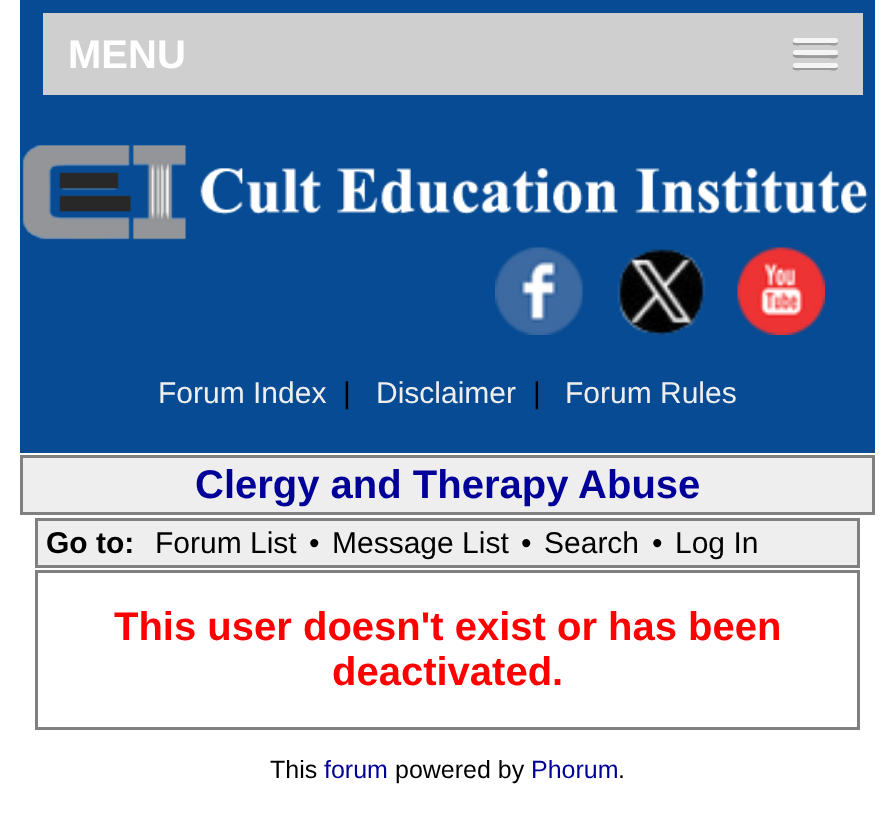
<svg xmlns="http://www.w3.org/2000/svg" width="895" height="815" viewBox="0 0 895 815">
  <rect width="100%" height="100%" fill="#fff"/>
  <path d="M20 0h855v453H20z" fill="#064b93"/>
  <path d="M43 13h820v82H43z" fill="#cfcfcf"/>
  <path d="M793 42C791 47 801 45 802 45H829C830 45 837 47 838 43L837 41L835 42H795Z" fill="#9b9b9b"/>
  <rect x="793" y="38" width="45" height="5" rx="2.5" fill="#f5f5f5"/>
  <path d="M793 54C791 59 802 58 802 58H829C830 58 837 60 838 56L837 54L835 55C832 55 795 56 793 54Z" fill="#9b9b9b"/>
  <rect x="793" y="50" width="45" height="5" rx="2.5" fill="#f5f5f5"/>
  <path d="M793 67C791 72 801 70 802 70H829C830 70 837 72 838 68L837 66L835 67H795Z" fill="#9b9b9b"/>
  <rect x="793" y="63" width="45" height="5" rx="2.5" fill="#f5f5f5"/>
  <image x="22" y="145" width="846" height="95" href="img/1.png"/>
  <image x="495" y="247" width="88" height="88" href="img/2.png"/>
  <image x="617" y="249" width="88" height="86" href="img/3.png"/>
  <image x="737" y="247" width="88" height="88" href="img/4.png"/>
  <path d="M21.5 456.5h852v57H21.5z" fill="#eee" stroke="#808080" stroke-width="3"/>
  <path d="M36.5 519.5h822v47H36.5z" fill="#eee" stroke="#808080" stroke-width="3"/>
  <path d="M36.5 571.5h822v157H36.5z" fill="none" stroke="#808080" stroke-width="3"/>
  <text x="68" y="68" font-family="Liberation Sans" font-size="40" font-weight="bold" fill="#fff">MENU</text>
  <text x="158" y="403" font-family="Liberation Sans" font-size="30" fill="#eee">Forum Index</text>
  <text x="343" y="403" font-family="Liberation Sans" font-size="30" fill="#000">|</text>
  <text x="376" y="403" font-family="Liberation Sans" font-size="30" fill="#eee">Disclaimer</text>
  <text x="533" y="403" font-family="Liberation Sans" font-size="30" fill="#000">|</text>
  <text x="565" y="403" font-family="Liberation Sans" font-size="30" fill="#eee">Forum Rules</text>
  <text x="195" y="498" font-family="Liberation Sans" font-size="40" font-weight="bold" fill="#009">Clergy and Therapy Abuse</text>
  <text x="46" y="553" font-family="Liberation Sans" font-size="30" font-weight="bold" fill="#000">Go to:</text>
  <g font-family="Liberation Sans" font-size="30" fill="#000">
    <text x="155" y="553">Forum List</text>
    <text x="309" y="553">•</text>
    <text x="332" y="553">Message List</text>
    <text x="521" y="553">•</text>
    <text x="544" y="553">Search</text>
    <text x="652" y="553">•</text>
    <text x="675" y="553">Log In</text>
  </g>
  <g font-family="Liberation Sans" font-size="40" font-weight="bold" fill="#f00">
    <text x="114" y="640">This user doesn't exist or has been</text>
    <text x="332" y="685">deactivated.</text>
  </g>
  <text x="270" y="778" font-family="Liberation Sans" font-size="25" fill="#000">This</text>
  <text x="324" y="778" font-family="Liberation Sans" font-size="25" fill="#009">forum</text>
  <text x="395" y="778" font-family="Liberation Sans" font-size="25" fill="#000">powered by</text>
  <text x="531" y="778" font-family="Liberation Sans" font-size="25" fill="#009">Phorum</text>
  <text x="618" y="778" font-family="Liberation Sans" font-size="25" fill="#000">.</text>
</svg>
